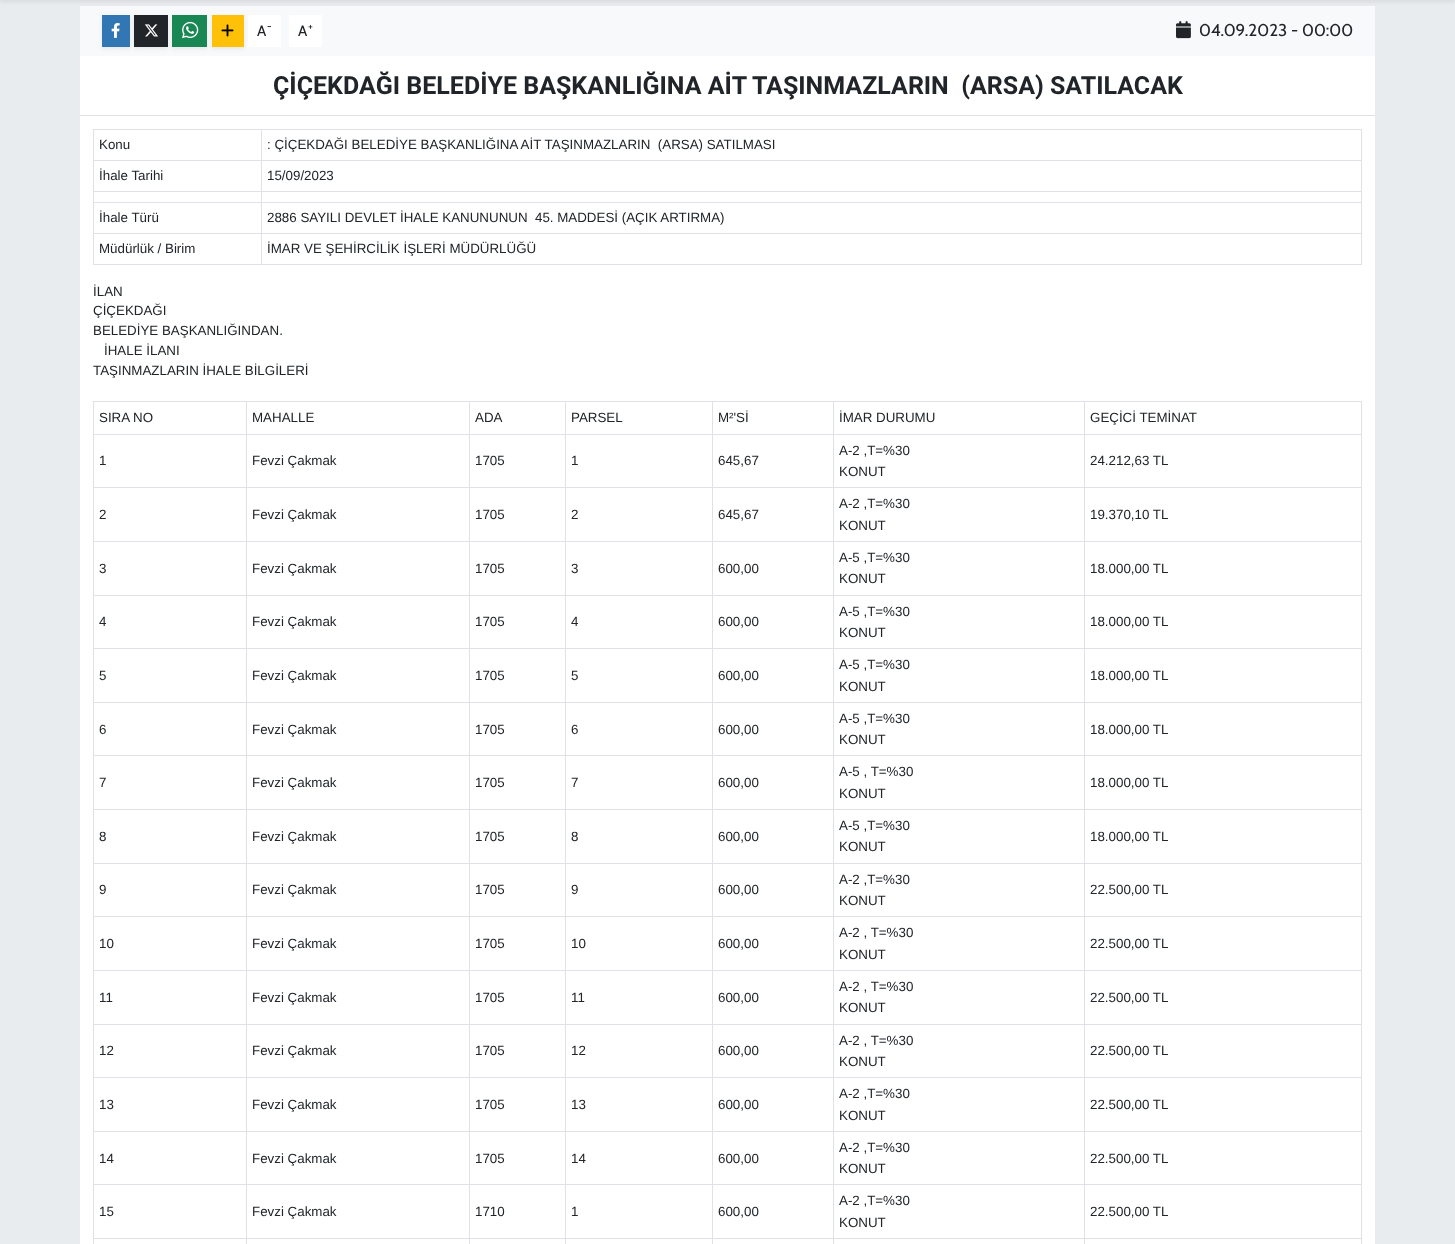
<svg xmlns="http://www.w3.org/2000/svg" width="1455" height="1244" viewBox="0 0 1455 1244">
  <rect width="100%" height="100%" fill="#e9ecef"/>
  <path d="M80 6h1295v50H80z" fill="#f8f9fa"/>
  <path d="M0 -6h1455v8H0z" fill="#00000012" filter="blur(2px)"/>
  <path d="M80 56h1295v1188H80z" fill="#fff"/>
  <path d="M102 17h28v32H102z" fill="#00000012" filter="blur(2px)"/>
  <path d="M102 15h28v32H102z" fill="#3276b3"/>
  <image x="111" y="23" width="9" height="15" href="img/1.png"/>
  <path d="M134 17h34v32H134z" fill="#00000012" filter="blur(2px)"/>
  <path d="M134 15h34v32H134z" fill="#212529"/>
  <image x="144" y="24" width="14" height="13" href="img/2.png"/>
  <path d="M172 17h35v32H172z" fill="#00000012" filter="blur(2px)"/>
  <path d="M172 15h35v32H172z" fill="#198754"/>
  <image x="182" y="21" width="17" height="18" href="img/3.png"/>
  <path d="M248 15h33v32H248z" fill="#fff"/>
  <path d="M212 17h32v32H212z" fill="#00000012" filter="blur(2px)"/>
  <path d="M212 15h32v32H212z" fill="#ffc107"/>
  <image x="221" y="24" width="13" height="13" href="img/4.png"/>
  <path d="M289 15h33v32H289z" fill="#fff"/>
  <image x="1176" y="21" width="15" height="18" href="img/5.png"/>
  <path d="M80 115h1295v1H80z" fill="#dee2e6"/>
  <path d="M93 129h1269v1H93z" fill="#dee2e6"/>
  <path d="M1361 129h1v136H1361z" fill="#dee2e6"/>
  <path d="M93 264h1269v1H93z" fill="#dee2e6"/>
  <path d="M93 129h1v136H93z" fill="#dee2e6"/>
  <path d="M261 160h1101v1H261z" fill="#dee2e6"/>
  <path d="M261 191h1101v1H261z" fill="#dee2e6"/>
  <path d="M261 202h1101v1H261z" fill="#dee2e6"/>
  <path d="M261 233h1101v1H261z" fill="#dee2e6"/>
  <path d="M261 233h1v32H261z" fill="#dee2e6"/>
  <path d="M93 233h169v1H93z" fill="#dee2e6"/>
  <path d="M261 202h1v32H261z" fill="#dee2e6"/>
  <path d="M93 202h169v1H93z" fill="#dee2e6"/>
  <path d="M261 191h1v12H261z" fill="#dee2e6"/>
  <path d="M93 191h169v1H93z" fill="#dee2e6"/>
  <path d="M261 160h1v32H261z" fill="#dee2e6"/>
  <path d="M93 160h169v1H93z" fill="#dee2e6"/>
  <path d="M261 129h1v32H261z" fill="#dee2e6"/>
  <path d="M93 401h1269v1H93z" fill="#dee2e6"/>
  <path d="M1361 401h1v843H1361z" fill="#dee2e6"/>
  <path d="M93 401h1v843H93z" fill="#dee2e6"/>
  <path d="M1084 434h278v1H1084z" fill="#dee2e6"/>
  <path d="M1084 487h278v1H1084z" fill="#dee2e6"/>
  <path d="M1084 541h278v1H1084z" fill="#dee2e6"/>
  <path d="M1084 595h278v1H1084z" fill="#dee2e6"/>
  <path d="M1084 648h278v1H1084z" fill="#dee2e6"/>
  <path d="M1084 702h278v1H1084z" fill="#dee2e6"/>
  <path d="M1084 755h278v1H1084z" fill="#dee2e6"/>
  <path d="M1084 809h278v1H1084z" fill="#dee2e6"/>
  <path d="M1084 863h278v1H1084z" fill="#dee2e6"/>
  <path d="M1084 916h278v1H1084z" fill="#dee2e6"/>
  <path d="M1084 970h278v1H1084z" fill="#dee2e6"/>
  <path d="M1084 1024h278v1H1084z" fill="#dee2e6"/>
  <path d="M1084 1077h278v1H1084z" fill="#dee2e6"/>
  <path d="M1084 1131h278v1H1084z" fill="#dee2e6"/>
  <path d="M1084 1184h278v1H1084z" fill="#dee2e6"/>
  <path d="M1084 1238h278v1H1084z" fill="#dee2e6"/>
  <path d="M1084 1238h1v6H1084z" fill="#dee2e6"/>
  <path d="M833 1238h252v1H833z" fill="#dee2e6"/>
  <path d="M1084 1184h1v55H1084z" fill="#dee2e6"/>
  <path d="M833 1184h252v1H833z" fill="#dee2e6"/>
  <path d="M1084 1131h1v54H1084z" fill="#dee2e6"/>
  <path d="M833 1131h252v1H833z" fill="#dee2e6"/>
  <path d="M1084 1077h1v55H1084z" fill="#dee2e6"/>
  <path d="M833 1077h252v1H833z" fill="#dee2e6"/>
  <path d="M1084 1024h1v54H1084z" fill="#dee2e6"/>
  <path d="M833 1024h252v1H833z" fill="#dee2e6"/>
  <path d="M1084 970h1v55H1084z" fill="#dee2e6"/>
  <path d="M833 970h252v1H833z" fill="#dee2e6"/>
  <path d="M1084 916h1v55H1084z" fill="#dee2e6"/>
  <path d="M833 916h252v1H833z" fill="#dee2e6"/>
  <path d="M1084 863h1v54H1084z" fill="#dee2e6"/>
  <path d="M833 863h252v1H833z" fill="#dee2e6"/>
  <path d="M1084 809h1v55H1084z" fill="#dee2e6"/>
  <path d="M833 809h252v1H833z" fill="#dee2e6"/>
  <path d="M1084 755h1v55H1084z" fill="#dee2e6"/>
  <path d="M833 755h252v1H833z" fill="#dee2e6"/>
  <path d="M1084 702h1v54H1084z" fill="#dee2e6"/>
  <path d="M833 702h252v1H833z" fill="#dee2e6"/>
  <path d="M1084 648h1v55H1084z" fill="#dee2e6"/>
  <path d="M833 648h252v1H833z" fill="#dee2e6"/>
  <path d="M1084 595h1v54H1084z" fill="#dee2e6"/>
  <path d="M833 595h252v1H833z" fill="#dee2e6"/>
  <path d="M1084 541h1v55H1084z" fill="#dee2e6"/>
  <path d="M833 541h252v1H833z" fill="#dee2e6"/>
  <path d="M1084 487h1v55H1084z" fill="#dee2e6"/>
  <path d="M833 487h252v1H833z" fill="#dee2e6"/>
  <path d="M1084 434h1v54H1084z" fill="#dee2e6"/>
  <path d="M833 434h252v1H833z" fill="#dee2e6"/>
  <path d="M833 1238h1v6H833z" fill="#dee2e6"/>
  <path d="M712 1238h122v1H712z" fill="#dee2e6"/>
  <path d="M833 1184h1v55H833z" fill="#dee2e6"/>
  <path d="M712 1184h122v1H712z" fill="#dee2e6"/>
  <path d="M833 1131h1v54H833z" fill="#dee2e6"/>
  <path d="M712 1131h122v1H712z" fill="#dee2e6"/>
  <path d="M833 1077h1v55H833z" fill="#dee2e6"/>
  <path d="M712 1077h122v1H712z" fill="#dee2e6"/>
  <path d="M833 1024h1v54H833z" fill="#dee2e6"/>
  <path d="M712 1024h122v1H712z" fill="#dee2e6"/>
  <path d="M833 970h1v55H833z" fill="#dee2e6"/>
  <path d="M712 970h122v1H712z" fill="#dee2e6"/>
  <path d="M833 916h1v55H833z" fill="#dee2e6"/>
  <path d="M712 916h122v1H712z" fill="#dee2e6"/>
  <path d="M833 863h1v54H833z" fill="#dee2e6"/>
  <path d="M712 863h122v1H712z" fill="#dee2e6"/>
  <path d="M833 809h1v55H833z" fill="#dee2e6"/>
  <path d="M712 809h122v1H712z" fill="#dee2e6"/>
  <path d="M833 755h1v55H833z" fill="#dee2e6"/>
  <path d="M712 755h122v1H712z" fill="#dee2e6"/>
  <path d="M833 702h1v54H833z" fill="#dee2e6"/>
  <path d="M712 702h122v1H712z" fill="#dee2e6"/>
  <path d="M833 648h1v55H833z" fill="#dee2e6"/>
  <path d="M712 648h122v1H712z" fill="#dee2e6"/>
  <path d="M833 595h1v54H833z" fill="#dee2e6"/>
  <path d="M712 595h122v1H712z" fill="#dee2e6"/>
  <path d="M833 541h1v55H833z" fill="#dee2e6"/>
  <path d="M712 541h122v1H712z" fill="#dee2e6"/>
  <path d="M833 487h1v55H833z" fill="#dee2e6"/>
  <path d="M712 487h122v1H712z" fill="#dee2e6"/>
  <path d="M833 434h1v54H833z" fill="#dee2e6"/>
  <path d="M712 434h122v1H712z" fill="#dee2e6"/>
  <path d="M712 1238h1v6H712z" fill="#dee2e6"/>
  <path d="M565 1238h148v1H565z" fill="#dee2e6"/>
  <path d="M712 1184h1v55H712z" fill="#dee2e6"/>
  <path d="M565 1184h148v1H565z" fill="#dee2e6"/>
  <path d="M712 1131h1v54H712z" fill="#dee2e6"/>
  <path d="M565 1131h148v1H565z" fill="#dee2e6"/>
  <path d="M712 1077h1v55H712z" fill="#dee2e6"/>
  <path d="M565 1077h148v1H565z" fill="#dee2e6"/>
  <path d="M712 1024h1v54H712z" fill="#dee2e6"/>
  <path d="M565 1024h148v1H565z" fill="#dee2e6"/>
  <path d="M712 970h1v55H712z" fill="#dee2e6"/>
  <path d="M565 970h148v1H565z" fill="#dee2e6"/>
  <path d="M712 916h1v55H712z" fill="#dee2e6"/>
  <path d="M565 916h148v1H565z" fill="#dee2e6"/>
  <path d="M712 863h1v54H712z" fill="#dee2e6"/>
  <path d="M565 863h148v1H565z" fill="#dee2e6"/>
  <path d="M712 809h1v55H712z" fill="#dee2e6"/>
  <path d="M565 809h148v1H565z" fill="#dee2e6"/>
  <path d="M712 755h1v55H712z" fill="#dee2e6"/>
  <path d="M565 755h148v1H565z" fill="#dee2e6"/>
  <path d="M712 702h1v54H712z" fill="#dee2e6"/>
  <path d="M565 702h148v1H565z" fill="#dee2e6"/>
  <path d="M712 648h1v55H712z" fill="#dee2e6"/>
  <path d="M565 648h148v1H565z" fill="#dee2e6"/>
  <path d="M712 595h1v54H712z" fill="#dee2e6"/>
  <path d="M565 595h148v1H565z" fill="#dee2e6"/>
  <path d="M712 541h1v55H712z" fill="#dee2e6"/>
  <path d="M565 541h148v1H565z" fill="#dee2e6"/>
  <path d="M712 487h1v55H712z" fill="#dee2e6"/>
  <path d="M565 487h148v1H565z" fill="#dee2e6"/>
  <path d="M712 434h1v54H712z" fill="#dee2e6"/>
  <path d="M565 434h148v1H565z" fill="#dee2e6"/>
  <path d="M565 1238h1v6H565z" fill="#dee2e6"/>
  <path d="M469 1238h97v1H469z" fill="#dee2e6"/>
  <path d="M565 1184h1v55H565z" fill="#dee2e6"/>
  <path d="M469 1184h97v1H469z" fill="#dee2e6"/>
  <path d="M565 1131h1v54H565z" fill="#dee2e6"/>
  <path d="M469 1131h97v1H469z" fill="#dee2e6"/>
  <path d="M565 1077h1v55H565z" fill="#dee2e6"/>
  <path d="M469 1077h97v1H469z" fill="#dee2e6"/>
  <path d="M565 1024h1v54H565z" fill="#dee2e6"/>
  <path d="M469 1024h97v1H469z" fill="#dee2e6"/>
  <path d="M565 970h1v55H565z" fill="#dee2e6"/>
  <path d="M469 970h97v1H469z" fill="#dee2e6"/>
  <path d="M565 916h1v55H565z" fill="#dee2e6"/>
  <path d="M469 916h97v1H469z" fill="#dee2e6"/>
  <path d="M565 863h1v54H565z" fill="#dee2e6"/>
  <path d="M469 863h97v1H469z" fill="#dee2e6"/>
  <path d="M565 809h1v55H565z" fill="#dee2e6"/>
  <path d="M469 809h97v1H469z" fill="#dee2e6"/>
  <path d="M565 755h1v55H565z" fill="#dee2e6"/>
  <path d="M469 755h97v1H469z" fill="#dee2e6"/>
  <path d="M565 702h1v54H565z" fill="#dee2e6"/>
  <path d="M469 702h97v1H469z" fill="#dee2e6"/>
  <path d="M565 648h1v55H565z" fill="#dee2e6"/>
  <path d="M469 648h97v1H469z" fill="#dee2e6"/>
  <path d="M565 595h1v54H565z" fill="#dee2e6"/>
  <path d="M469 595h97v1H469z" fill="#dee2e6"/>
  <path d="M565 541h1v55H565z" fill="#dee2e6"/>
  <path d="M469 541h97v1H469z" fill="#dee2e6"/>
  <path d="M565 487h1v55H565z" fill="#dee2e6"/>
  <path d="M469 487h97v1H469z" fill="#dee2e6"/>
  <path d="M565 434h1v54H565z" fill="#dee2e6"/>
  <path d="M469 434h97v1H469z" fill="#dee2e6"/>
  <path d="M469 1238h1v6H469z" fill="#dee2e6"/>
  <path d="M246 1238h224v1H246z" fill="#dee2e6"/>
  <path d="M469 1184h1v55H469z" fill="#dee2e6"/>
  <path d="M246 1184h224v1H246z" fill="#dee2e6"/>
  <path d="M469 1131h1v54H469z" fill="#dee2e6"/>
  <path d="M246 1131h224v1H246z" fill="#dee2e6"/>
  <path d="M469 1077h1v55H469z" fill="#dee2e6"/>
  <path d="M246 1077h224v1H246z" fill="#dee2e6"/>
  <path d="M469 1024h1v54H469z" fill="#dee2e6"/>
  <path d="M246 1024h224v1H246z" fill="#dee2e6"/>
  <path d="M469 970h1v55H469z" fill="#dee2e6"/>
  <path d="M246 970h224v1H246z" fill="#dee2e6"/>
  <path d="M469 916h1v55H469z" fill="#dee2e6"/>
  <path d="M246 916h224v1H246z" fill="#dee2e6"/>
  <path d="M469 863h1v54H469z" fill="#dee2e6"/>
  <path d="M246 863h224v1H246z" fill="#dee2e6"/>
  <path d="M469 809h1v55H469z" fill="#dee2e6"/>
  <path d="M246 809h224v1H246z" fill="#dee2e6"/>
  <path d="M469 755h1v55H469z" fill="#dee2e6"/>
  <path d="M246 755h224v1H246z" fill="#dee2e6"/>
  <path d="M469 702h1v54H469z" fill="#dee2e6"/>
  <path d="M246 702h224v1H246z" fill="#dee2e6"/>
  <path d="M469 648h1v55H469z" fill="#dee2e6"/>
  <path d="M246 648h224v1H246z" fill="#dee2e6"/>
  <path d="M469 595h1v54H469z" fill="#dee2e6"/>
  <path d="M246 595h224v1H246z" fill="#dee2e6"/>
  <path d="M469 541h1v55H469z" fill="#dee2e6"/>
  <path d="M246 541h224v1H246z" fill="#dee2e6"/>
  <path d="M469 487h1v55H469z" fill="#dee2e6"/>
  <path d="M246 487h224v1H246z" fill="#dee2e6"/>
  <path d="M469 434h1v54H469z" fill="#dee2e6"/>
  <path d="M246 434h224v1H246z" fill="#dee2e6"/>
  <path d="M246 1238h1v6H246z" fill="#dee2e6"/>
  <path d="M93 1238h154v1H93z" fill="#dee2e6"/>
  <path d="M246 1184h1v55H246z" fill="#dee2e6"/>
  <path d="M93 1184h154v1H93z" fill="#dee2e6"/>
  <path d="M246 1131h1v54H246z" fill="#dee2e6"/>
  <path d="M93 1131h154v1H93z" fill="#dee2e6"/>
  <path d="M246 1077h1v55H246z" fill="#dee2e6"/>
  <path d="M93 1077h154v1H93z" fill="#dee2e6"/>
  <path d="M246 1024h1v54H246z" fill="#dee2e6"/>
  <path d="M93 1024h154v1H93z" fill="#dee2e6"/>
  <path d="M246 970h1v55H246z" fill="#dee2e6"/>
  <path d="M93 970h154v1H93z" fill="#dee2e6"/>
  <path d="M246 916h1v55H246z" fill="#dee2e6"/>
  <path d="M93 916h154v1H93z" fill="#dee2e6"/>
  <path d="M246 863h1v54H246z" fill="#dee2e6"/>
  <path d="M93 863h154v1H93z" fill="#dee2e6"/>
  <path d="M246 809h1v55H246z" fill="#dee2e6"/>
  <path d="M93 809h154v1H93z" fill="#dee2e6"/>
  <path d="M246 755h1v55H246z" fill="#dee2e6"/>
  <path d="M93 755h154v1H93z" fill="#dee2e6"/>
  <path d="M246 702h1v54H246z" fill="#dee2e6"/>
  <path d="M93 702h154v1H93z" fill="#dee2e6"/>
  <path d="M246 648h1v55H246z" fill="#dee2e6"/>
  <path d="M93 648h154v1H93z" fill="#dee2e6"/>
  <path d="M246 595h1v54H246z" fill="#dee2e6"/>
  <path d="M93 595h154v1H93z" fill="#dee2e6"/>
  <path d="M246 541h1v55H246z" fill="#dee2e6"/>
  <path d="M93 541h154v1H93z" fill="#dee2e6"/>
  <path d="M246 487h1v55H246z" fill="#dee2e6"/>
  <path d="M93 487h154v1H93z" fill="#dee2e6"/>
  <path d="M246 434h1v54H246z" fill="#dee2e6"/>
  <path d="M93 434h154v1H93z" fill="#dee2e6"/>
  <path d="M246 401h1v34H246z" fill="#dee2e6"/>
  <path d="M469 401h1v34H469z" fill="#dee2e6"/>
  <path d="M565 401h1v34H565z" fill="#dee2e6"/>
  <path d="M712 401h1v34H712z" fill="#dee2e6"/>
  <path d="M833 401h1v34H833z" fill="#dee2e6"/>
  <path d="M1084 401h1v34H1084z" fill="#dee2e6"/>
  <text x="257" y="36" font-family="Cabin" font-size="15" fill="#212529">A</text>
  <text x="267" y="30" font-family="Cabin" font-size="11" fill="#212529">-</text>
  <text x="298" y="36" font-family="Cabin" font-size="15" fill="#212529">A</text>
  <text x="308" y="30" font-family="Cabin" font-size="11" fill="#212529">+</text>
  <text x="1199" y="36" font-family="Cabin" font-size="17" fill="#212529">04.09.2023 - 00:00</text>
  <text x="273" y="94" font-family="Roboto" font-size="25" font-weight="bold" fill="#212529" xml:space="preserve">ÇİÇEKDAĞI BELEDİYE BAŞKANLIĞINA AİT TAŞINMAZLARIN  (ARSA) SATILACAK</text>
  <g font-family="Liberation Sans" font-size="13.35" fill="#212529">
    <text x="99" y="149">Konu</text>
    <text x="267" y="149" xml:space="preserve">: ÇİÇEKDAĞI BELEDİYE BAŞKANLIĞINA AİT TAŞINMAZLARIN  (ARSA) SATILMASI</text>
    <text x="99" y="180">İhale Tarihi</text>
    <text x="267" y="180">15/09/2023</text>
    <text x="99" y="222">İhale Türü</text>
    <text x="267" y="222" xml:space="preserve">2886 SAYILI DEVLET İHALE KANUNUNUN  45. MADDESİ (AÇIK ARTIRMA)</text>
    <text x="99" y="253">Müdürlük / Birim</text>
    <text x="267" y="253">İMAR VE ŞEHİRCİLİK İŞLERİ MÜDÜRLÜĞÜ</text>
    <text x="93" y="296">İLAN</text>
    <text x="93" y="315">ÇİÇEKDAĞI</text>
    <text x="93" y="335">BELEDİYE BAŞKANLIĞINDAN.</text>
    <text x="104" y="355">İHALE İLANI</text>
    <text x="93" y="375">TAŞINMAZLARIN İHALE BİLGİLERİ</text>
    <text x="99" y="422">SIRA NO</text>
    <text x="252" y="422">MAHALLE</text>
    <text x="475" y="422">ADA</text>
    <text x="571" y="422">PARSEL</text>
    <text x="718" y="422">M²'Sİ</text>
    <text x="839" y="422">İMAR DURUMU</text>
    <text x="1090" y="422">GEÇİCİ TEMİNAT</text>
    <text x="99" y="465">1</text>
    <text x="252" y="465">Fevzi Çakmak</text>
    <text x="475" y="465">1705</text>
    <text x="571" y="465">1</text>
    <text x="718" y="465">645,67</text>
    <text x="839" y="455">A-2 ,T=%30</text>
    <text x="839" y="476">KONUT</text>
    <text x="1090" y="465">24.212,63 TL</text>
    <text x="99" y="519">2</text>
    <text x="252" y="519">Fevzi Çakmak</text>
    <text x="475" y="519">1705</text>
    <text x="571" y="519">2</text>
    <text x="718" y="519">645,67</text>
    <text x="839" y="508">A-2 ,T=%30</text>
    <text x="839" y="530">KONUT</text>
    <text x="1090" y="519">19.370,10 TL</text>
    <text x="99" y="573">3</text>
    <text x="252" y="573">Fevzi Çakmak</text>
    <text x="475" y="573">1705</text>
    <text x="571" y="573">3</text>
    <text x="718" y="573">600,00</text>
    <text x="839" y="562">A-5 ,T=%30</text>
    <text x="839" y="583">KONUT</text>
    <text x="1090" y="573">18.000,00 TL</text>
    <text x="99" y="626">4</text>
    <text x="252" y="626">Fevzi Çakmak</text>
    <text x="475" y="626">1705</text>
    <text x="571" y="626">4</text>
    <text x="718" y="626">600,00</text>
    <text x="839" y="616">A-5 ,T=%30</text>
    <text x="839" y="637">KONUT</text>
    <text x="1090" y="626">18.000,00 TL</text>
    <text x="99" y="680">5</text>
    <text x="252" y="680">Fevzi Çakmak</text>
    <text x="475" y="680">1705</text>
    <text x="571" y="680">5</text>
    <text x="718" y="680">600,00</text>
    <text x="839" y="669">A-5 ,T=%30</text>
    <text x="839" y="691">KONUT</text>
    <text x="1090" y="680">18.000,00 TL</text>
    <text x="99" y="734">6</text>
    <text x="252" y="734">Fevzi Çakmak</text>
    <text x="475" y="734">1705</text>
    <text x="571" y="734">6</text>
    <text x="718" y="734">600,00</text>
    <text x="839" y="723">A-5 ,T=%30</text>
    <text x="839" y="744">KONUT</text>
    <text x="1090" y="734">18.000,00 TL</text>
    <text x="99" y="787">7</text>
    <text x="252" y="787">Fevzi Çakmak</text>
    <text x="475" y="787">1705</text>
    <text x="571" y="787">7</text>
    <text x="718" y="787">600,00</text>
    <text x="839" y="776">A-5 , T=%30</text>
    <text x="839" y="798">KONUT</text>
    <text x="1090" y="787">18.000,00 TL</text>
    <text x="99" y="841">8</text>
    <text x="252" y="841">Fevzi Çakmak</text>
    <text x="475" y="841">1705</text>
    <text x="571" y="841">8</text>
    <text x="718" y="841">600,00</text>
    <text x="839" y="830">A-5 ,T=%30</text>
    <text x="839" y="851">KONUT</text>
    <text x="1090" y="841">18.000,00 TL</text>
    <text x="99" y="894">9</text>
    <text x="252" y="894">Fevzi Çakmak</text>
    <text x="475" y="894">1705</text>
    <text x="571" y="894">9</text>
    <text x="718" y="894">600,00</text>
    <text x="839" y="884">A-2 ,T=%30</text>
    <text x="839" y="905">KONUT</text>
    <text x="1090" y="894">22.500,00 TL</text>
    <text x="99" y="948">10</text>
    <text x="252" y="948">Fevzi Çakmak</text>
    <text x="475" y="948">1705</text>
    <text x="571" y="948">10</text>
    <text x="718" y="948">600,00</text>
    <text x="839" y="937">A-2 , T=%30</text>
    <text x="839" y="959">KONUT</text>
    <text x="1090" y="948">22.500,00 TL</text>
    <text x="99" y="1002">11</text>
    <text x="252" y="1002">Fevzi Çakmak</text>
    <text x="475" y="1002">1705</text>
    <text x="571" y="1002">11</text>
    <text x="718" y="1002">600,00</text>
    <text x="839" y="991">A-2 , T=%30</text>
    <text x="839" y="1012">KONUT</text>
    <text x="1090" y="1002">22.500,00 TL</text>
    <text x="99" y="1055">12</text>
    <text x="252" y="1055">Fevzi Çakmak</text>
    <text x="475" y="1055">1705</text>
    <text x="571" y="1055">12</text>
    <text x="718" y="1055">600,00</text>
    <text x="839" y="1045">A-2 , T=%30</text>
    <text x="839" y="1066">KONUT</text>
    <text x="1090" y="1055">22.500,00 TL</text>
    <text x="99" y="1109">13</text>
    <text x="252" y="1109">Fevzi Çakmak</text>
    <text x="475" y="1109">1705</text>
    <text x="571" y="1109">13</text>
    <text x="718" y="1109">600,00</text>
    <text x="839" y="1098">A-2 ,T=%30</text>
    <text x="839" y="1120">KONUT</text>
    <text x="1090" y="1109">22.500,00 TL</text>
    <text x="99" y="1163">14</text>
    <text x="252" y="1163">Fevzi Çakmak</text>
    <text x="475" y="1163">1705</text>
    <text x="571" y="1163">14</text>
    <text x="718" y="1163">600,00</text>
    <text x="839" y="1152">A-2 ,T=%30</text>
    <text x="839" y="1173">KONUT</text>
    <text x="1090" y="1163">22.500,00 TL</text>
    <text x="99" y="1216">15</text>
    <text x="252" y="1216">Fevzi Çakmak</text>
    <text x="475" y="1216">1710</text>
    <text x="571" y="1216">1</text>
    <text x="718" y="1216">600,00</text>
    <text x="839" y="1205">A-2 ,T=%30</text>
    <text x="839" y="1227">KONUT</text>
    <text x="1090" y="1216">22.500,00 TL</text>
  </g>
</svg>
